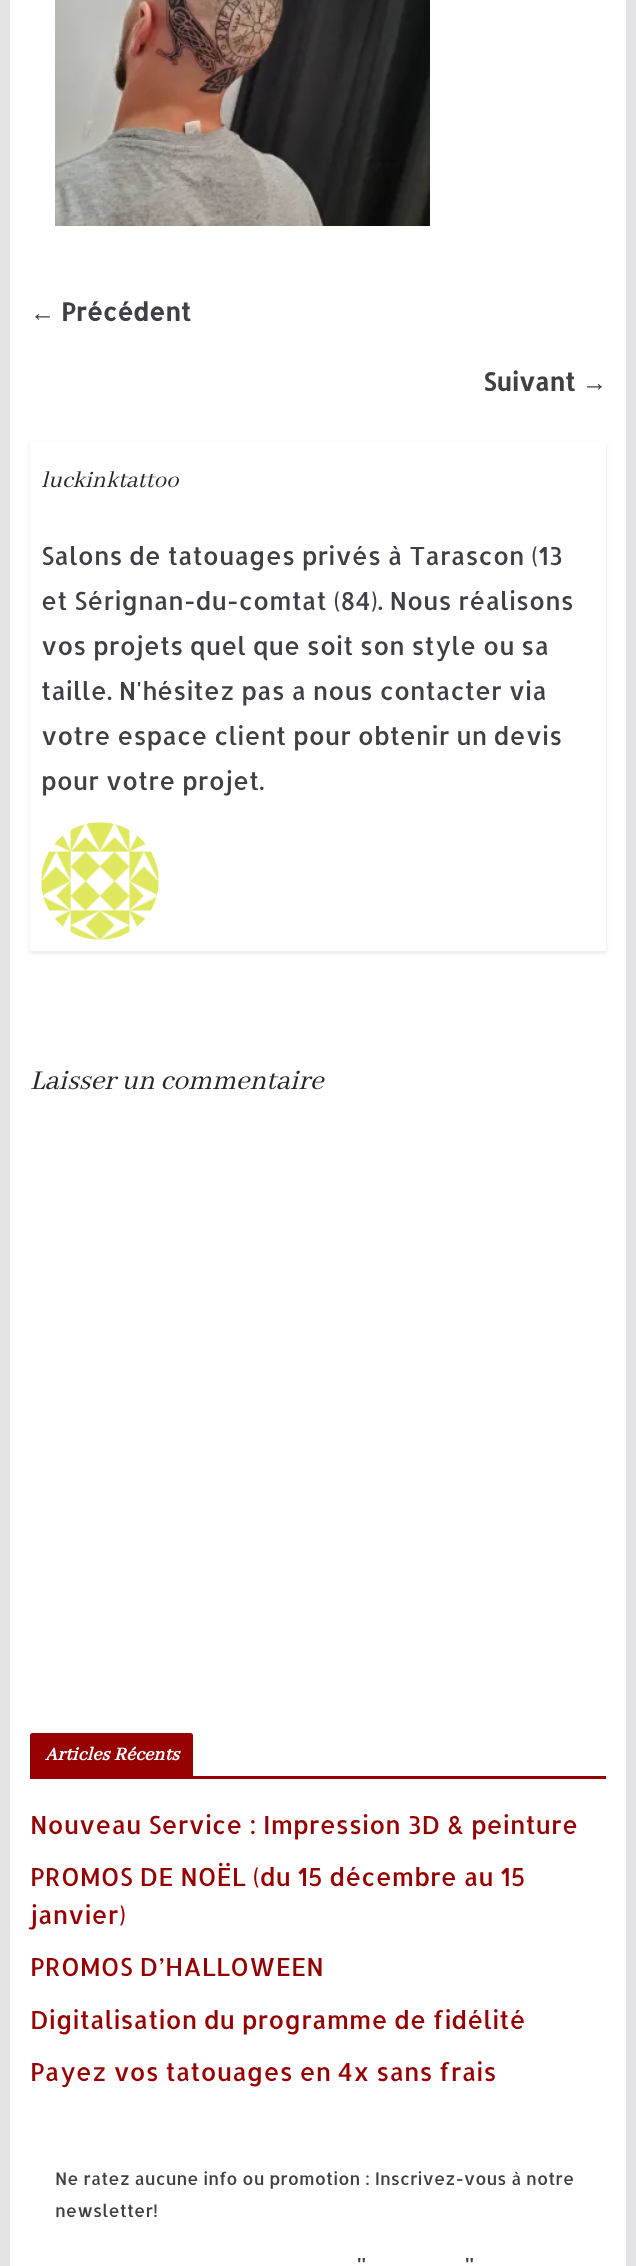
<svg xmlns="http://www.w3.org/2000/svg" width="636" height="2266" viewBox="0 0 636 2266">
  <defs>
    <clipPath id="clip1"><path d="M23 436H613V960H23ZM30 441H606V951H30Z" clip-rule="evenodd"/></clipPath>
  </defs>
  <rect width="100%" height="100%" fill="#e4e4e7"/>
  <path d="M10 0h616v2266H10z" fill="#fff"/>
  <image x="55" y="0" width="375" height="226" href="img/1.png"/>
  <g clip-path="url(#clip1)">
    <path d="M30 443h576v510H30z" fill="#0000001a" filter="blur(2px)"/>
  </g>
  <image x="41" y="822" width="118" height="118" href="img/2.png"/>
  <path d="M30 1776h576v3H30z" fill="#960000"/>
  <path d="M32.5 1733H190.5C192 1733 193 1734 193 1735.5V1776H30V1735.5C30 1734 31 1733 32.5 1733Z" fill="#960000"/>
  <text x="30" y="321" font-family="Liberation Serif" font-size="25" font-weight="bold" fill="#3f3f46">←</text>
  <g font-family="Allerta" font-size="25" font-weight="bold" fill="#3f3f46">
    <text x="61" y="321">Précédent</text>
    <text x="483" y="391">Suivant</text>
  </g>
  <text x="582" y="391" font-family="Liberation Serif" font-size="25" font-weight="bold" fill="#3f3f46">→</text>
  <text x="41" y="487" font-family="Abhaya Libre" font-size="25" font-style="italic" fill="#27272a">luckinktattoo</text>
  <g font-family="Allerta" font-size="25" fill="#3f3f46">
    <text x="41" y="565">Salons de tatouages privés à Tarascon (13</text>
    <text x="41" y="610">et Sérignan-du-comtat (84). Nous réalisons</text>
    <text x="41" y="655">vos projets quel que soit son style ou sa</text>
    <text x="41" y="700">taille. N'hésitez pas a nous contacter via</text>
    <text x="41" y="745">votre espace client pour obtenir un devis</text>
    <text x="41" y="790">pour votre projet.</text>
  </g>
  <text x="30" y="1089" font-family="Abhaya Libre" font-size="30" font-style="italic" fill="#27272a">Laisser un commentaire</text>
  <text x="45" y="1760" font-family="Abhaya Libre" font-size="20" font-weight="bold" font-style="italic" letter-spacing="0.25" fill="#fff">Articles Récents</text>
  <g font-family="Allerta" font-size="25" fill="#960000">
    <text x="30" y="1834">Nouveau Service : Impression 3D &amp; peinture</text>
    <text x="30" y="1886">PROMOS DE NOËL (du 15 décembre au 15</text>
    <text x="30" y="1924">janvier)</text>
    <text x="30" y="1976">PROMOS D’HALLOWEEN</text>
    <text x="30" y="2029">Digitalisation du programme de fidélité</text>
    <text x="30" y="2081">Payez vos tatouages en 4x sans frais</text>
  </g>
  <g font-family="Allerta" font-size="17.5" fill="#3f3f46">
    <text x="55" y="2185">Ne ratez aucune info ou promotion : Inscrivez-vous à notre</text>
    <text x="55" y="2217">newsletter!</text>
  </g>
  <g font-family="Allerta" font-size="25" fill="#3f3f46">
    <text x="356" y="2276">"</text>
    <text x="464" y="2276">"</text>
  </g>
</svg>
